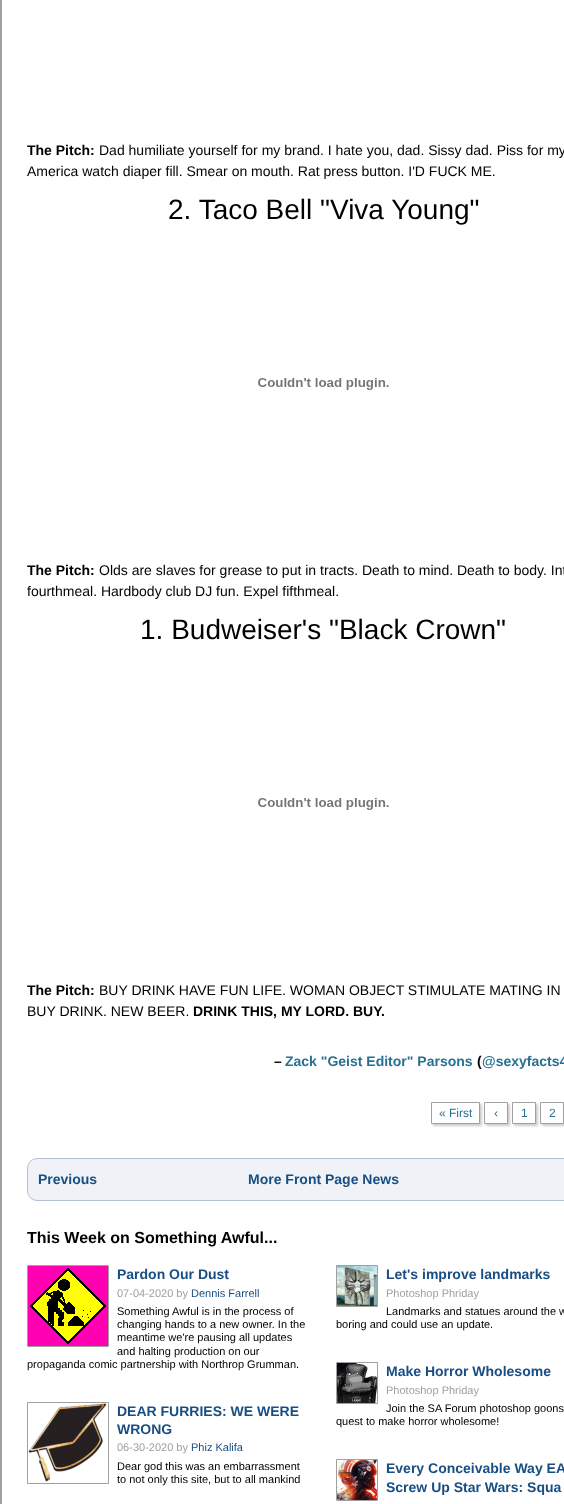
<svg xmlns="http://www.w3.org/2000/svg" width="564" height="1504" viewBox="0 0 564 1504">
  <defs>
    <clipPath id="clip1"><path d="M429 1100H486V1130H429ZM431 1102H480V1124H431Z" clip-rule="evenodd"/></clipPath>
    <clipPath id="clip2"><path d="M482 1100H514V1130H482ZM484 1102H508V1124H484Z" clip-rule="evenodd"/></clipPath>
    <clipPath id="clip3"><path d="M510 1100H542V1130H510ZM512 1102H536V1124H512Z" clip-rule="evenodd"/></clipPath>
    <clipPath id="clip4"><path d="M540 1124h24v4H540z"/></clipPath>
  </defs>
  <rect width="100%" height="100%" fill="#fff"/>
  <path d="M0 0h2v1504H0z" fill="#a0a0a0"/>
  <image x="258" y="378" width="131" height="12" href="img/1.png"/>
  <image x="258" y="798" width="131" height="12" href="img/1.png"/>
  <g clip-path="url(#clip1)">
    <path d="M433 1104h49v22H433z" fill="#ccc" filter="blur(1px)"/>
  </g>
  <path d="M431.5 1102.5h48v21H431.5z" fill="none" stroke="#a0a0a0"/>
  <g clip-path="url(#clip2)">
    <path d="M486 1104h24v22H486z" fill="#ccc" filter="blur(1px)"/>
  </g>
  <path d="M484.5 1102.5h23v21H484.5z" fill="none" stroke="#a0a0a0"/>
  <g clip-path="url(#clip3)">
    <path d="M514 1104h24v22H514z" fill="#ccc" filter="blur(1px)"/>
  </g>
  <path d="M512.5 1102.5h23v21H512.5z" fill="none" stroke="#a0a0a0"/>
  <g clip-path="url(#clip4)">
    <path d="M542 1104h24v22H542z" fill="#ccc" filter="blur(1px)"/>
  </g>
  <path d="M540.5 1102.5h23v21H540.5z" fill="none" stroke="#a0a0a0"/>
  <rect x="27.5" y="1158.5" width="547" height="42" rx="9.5" fill="#eff3f7" stroke="#b4c1cd"/>
  <path d="M27.5 1265.5h81v81H27.5z" fill="none" stroke="#a0a0a0"/>
  <image x="28" y="1266" width="80" height="80" href="img/2.png"/>
  <path d="M27.5 1402.5h81v81H27.5z" fill="none" stroke="#a0a0a0"/>
  <image x="28" y="1403" width="79" height="79" href="img/3.png"/>
  <path d="M336.5 1265.5h41v41H336.5z" fill="none" stroke="#a0a0a0"/>
  <image x="337" y="1266" width="40" height="40" href="img/4.png"/>
  <path d="M336.5 1362.5h41v41H336.5z" fill="none" stroke="#a0a0a0"/>
  <image x="337" y="1363" width="40" height="40" href="img/5.png"/>
  <path d="M336.5 1459.5h41v41H336.5z" fill="none" stroke="#a0a0a0"/>
  <image x="337" y="1460" width="40" height="40" href="img/6.png"/>
  <text x="27" y="155" font-family="Liberation Sans" font-size="14" font-weight="bold" fill="#000">The Pitch:</text>
  <g font-family="Liberation Sans" font-size="14" fill="#000">
    <text x="99" y="155">Dad humiliate yourself for my brand. I hate you, dad. Sissy dad. Piss for my</text>
    <text x="27" y="176">America watch diaper fill. Smear on mouth. Rat press button. I'D FUCK ME.</text>
  </g>
  <text x="168" y="219" font-family="Liberation Sans" font-size="28" fill="#000">2. Taco Bell "Viva Young"</text>
  <text x="27" y="575" font-family="Liberation Sans" font-size="14" font-weight="bold" fill="#000">The Pitch:</text>
  <g font-family="Liberation Sans" font-size="14" fill="#000">
    <text x="99" y="575">Olds are slaves for grease to put in tracts. Death to mind. Death to body. Int</text>
    <text x="27" y="596">fourthmeal. Hardbody club DJ fun. Expel fifthmeal.</text>
  </g>
  <text x="140" y="639" font-family="Liberation Sans" font-size="28" fill="#000">1. Budweiser's "Black Crown"</text>
  <text x="27" y="995" font-family="Liberation Sans" font-size="14" font-weight="bold" fill="#000">The Pitch:</text>
  <g font-family="Liberation Sans" font-size="14" fill="#000">
    <text x="99" y="995">BUY DRINK HAVE FUN LIFE. WOMAN OBJECT STIMULATE MATING IN</text>
    <text x="27" y="1016">BUY DRINK. NEW BEER.</text>
  </g>
  <g font-family="Liberation Sans" font-size="14" font-weight="bold" fill="#000">
    <text x="193" y="1016">DRINK THIS, MY LORD. BUY.</text>
    <text x="274" y="1066">–</text>
  </g>
  <text x="285" y="1066" font-family="Liberation Sans" font-size="14" font-weight="bold" fill="#297093">Zack "Geist Editor" Parsons</text>
  <text x="477" y="1066" font-family="Liberation Sans" font-size="14" font-weight="bold" fill="#000">(</text>
  <text x="482" y="1066" font-family="Liberation Sans" font-size="14" font-weight="bold" fill="#297093">@sexyfacts4</text>
  <g font-family="Liberation Sans" font-size="12" fill="#297093">
    <text x="439" y="1117">« First</text>
    <text x="494" y="1117">‹</text>
    <text x="521" y="1117">1</text>
    <text x="549" y="1117">2</text>
  </g>
  <g font-family="Liberation Sans" font-size="14" font-weight="bold" fill="#194e84">
    <text x="38" y="1184">Previous</text>
    <text x="248" y="1184">More Front Page News</text>
  </g>
  <text x="27" y="1243" font-family="Liberation Sans" font-size="16" font-weight="bold" fill="#000">This Week on Something Awful...</text>
  <text x="117" y="1279" font-family="Liberation Sans" font-size="14" font-weight="bold" fill="#194e84">Pardon Our Dust</text>
  <text x="117" y="1297" font-family="Liberation Sans" font-size="11" fill="#a0a0a0">07-04-2020 by</text>
  <text x="191" y="1297" font-family="Liberation Sans" font-size="11" fill="#194e84">Dennis Farrell</text>
  <g font-family="Liberation Sans" font-size="11" fill="#000">
    <text x="117" y="1315">Something Awful is in the process of</text>
    <text x="117" y="1328">changing hands to a new owner. In the</text>
    <text x="117" y="1341">meantime we're pausing all updates</text>
    <text x="117" y="1355">and halting production on our</text>
    <text x="27" y="1368">propaganda comic partnership with Northrop Grumman.</text>
  </g>
  <g font-family="Liberation Sans" font-size="14" font-weight="bold" fill="#194e84">
    <text x="117" y="1416">DEAR FURRIES: WE WERE</text>
    <text x="117" y="1434">WRONG</text>
  </g>
  <text x="117" y="1451" font-family="Liberation Sans" font-size="11" fill="#a0a0a0">06-30-2020 by</text>
  <text x="191" y="1451" font-family="Liberation Sans" font-size="11" fill="#194e84">Phiz Kalifa</text>
  <g font-family="Liberation Sans" font-size="11" fill="#000">
    <text x="117" y="1470">Dear god this was an embarrassment</text>
    <text x="117" y="1483">to not only this site, but to all mankind</text>
  </g>
  <text x="386" y="1279" font-family="Liberation Sans" font-size="14" font-weight="bold" fill="#194e84">Let's improve landmarks</text>
  <text x="386" y="1297" font-family="Liberation Sans" font-size="11" fill="#a0a0a0">Photoshop Phriday</text>
  <g font-family="Liberation Sans" font-size="11" fill="#000">
    <text x="386" y="1315">Landmarks and statues around the w</text>
    <text x="336" y="1328">boring and could use an update.</text>
  </g>
  <text x="386" y="1376" font-family="Liberation Sans" font-size="14" font-weight="bold" fill="#194e84">Make Horror Wholesome</text>
  <text x="386" y="1394" font-family="Liberation Sans" font-size="11" fill="#a0a0a0">Photoshop Phriday</text>
  <g font-family="Liberation Sans" font-size="11" fill="#000">
    <text x="386" y="1412">Join the SA Forum photoshop goons</text>
    <text x="336" y="1425">quest to make horror wholesome!</text>
  </g>
  <g font-family="Liberation Sans" font-size="14" font-weight="bold" fill="#194e84">
    <text x="386" y="1473">Every Conceivable Way EA</text>
    <text x="386" y="1492">Screw Up Star Wars: Squa</text>
  </g>
</svg>
